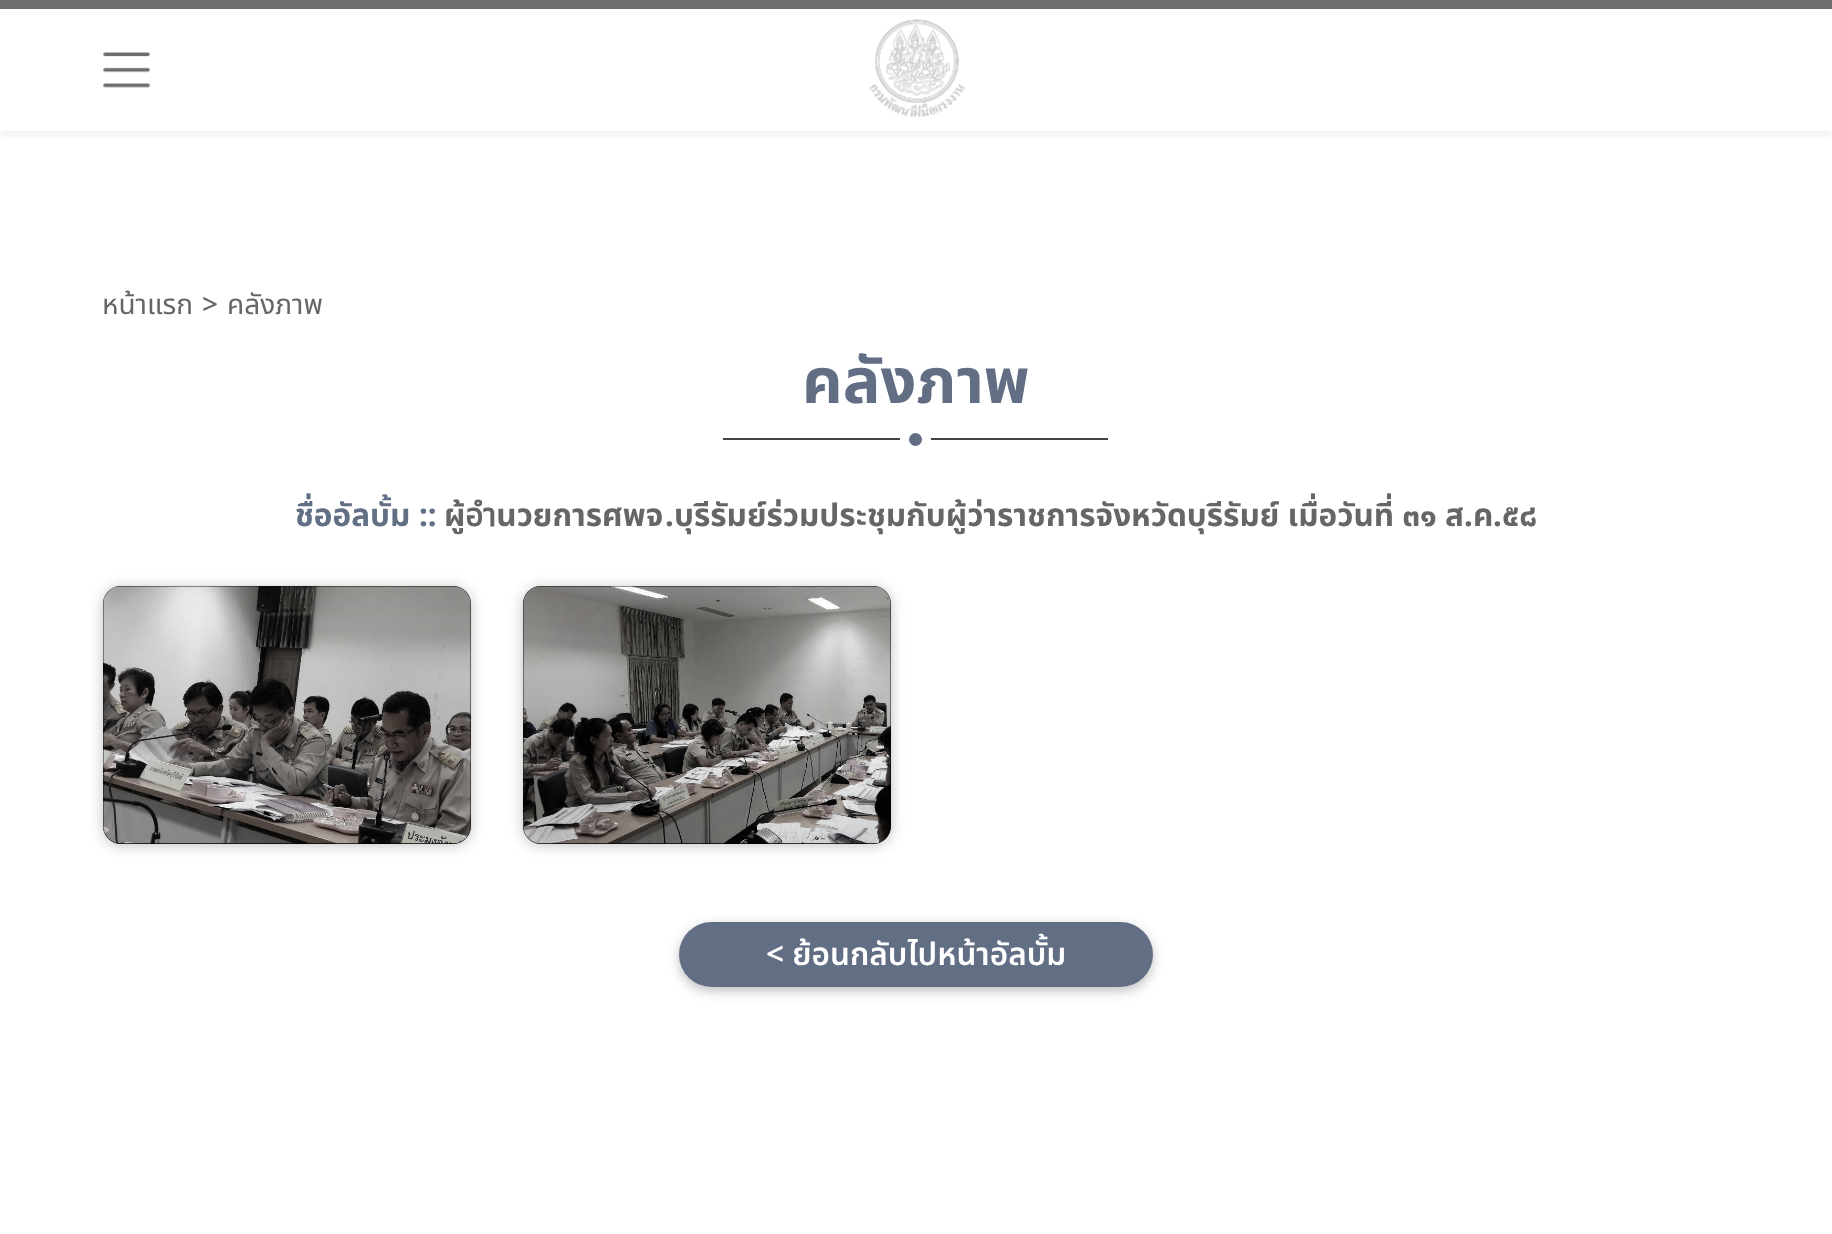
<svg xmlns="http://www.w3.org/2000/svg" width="1832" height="1234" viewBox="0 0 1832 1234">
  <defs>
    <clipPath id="clip1"><path d="M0 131h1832v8H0z"/></clipPath>
  </defs>
  <rect width="100%" height="100%" fill="#fff"/>
  <g clip-path="url(#clip1)">
    <path d="M0 5h1832v132H0z" fill="#56565612" filter="blur(3.5px)"/>
  </g>
  <path d="M0 0h1832v9H0z" fill="#6d6d6d"/>
  <image x="103" y="52" width="48" height="36" href="img/1.png"/>
  <image x="869" y="19" width="96" height="99" href="img/2.png"/>
  <path d="M723 438h385v2H723z" fill="#444"/>
  <circle cx="915.5" cy="439.5" r="11" fill="#616e83" stroke="#fff" stroke-width="9"/>
  <rect x="103" y="588" width="368" height="257" rx="18" fill="#00000040" filter="blur(7px)"/>
  <rect x="103" y="586" width="368" height="258" rx="18" fill="#000"/>
  <image x="103" y="586" width="368" height="258" href="img/3.png"/>
  <rect x="523" y="588" width="368" height="257" rx="18" fill="#00000040" filter="blur(7px)"/>
  <rect x="523" y="586" width="368" height="258" rx="18" fill="#000"/>
  <image x="523" y="586" width="368" height="258" href="img/4.png"/>
  <rect x="679" y="926" width="474" height="65" rx="32.5" fill="#00000040" filter="blur(6px)"/>
  <rect x="679" y="922" width="474" height="65" rx="32.5" fill="#616e83"/>
  <text x="102" y="314" font-family="Noto Sans Thai" font-size="28" fill="#666">หน้าแรก</text>
  <text x="202" y="314" font-family="Noto Sans" font-size="28" font-weight="500" fill="#666">&gt;</text>
  <text x="227" y="314" font-family="Noto Sans Thai" font-size="28" fill="#666">คลังภาพ</text>
  <text x="802" y="403" font-family="Noto Sans Thai" font-size="63" font-weight="bold" fill="#616e83">คลังภาพ</text>
  <text x="295" y="526" font-family="Noto Sans Thai" font-size="31.5" font-weight="bold" fill="#616e83">ชื่ออัลบั้ม</text>
  <text x="419" y="526" font-family="Noto Sans" font-size="31.5" font-weight="bold" fill="#616e83">::</text>
  <g font-family="Noto Sans Thai" font-size="31.5" font-weight="bold" fill="#666">
    <text x="444" y="526">ผู้อำนวยการศพจ</text>
    <text x="1473" y="526">ค</text>
    <text x="1502" y="526">๕๘</text>
  </g>
  <text x="665" y="526" font-family="Noto Sans" font-size="31.5" font-weight="bold" fill="#666">.</text>
  <text x="674" y="526" font-family="Noto Sans Thai" font-size="31.5" font-weight="bold" fill="#666">บุรีรัมย์ร่วมประชุมกับผู้ว่าราชการจังหวัดบุรีรัมย์ เมื่อวันที่ ๓๑ ส</text>
  <g font-family="Noto Sans" font-size="31.5" font-weight="bold" fill="#666">
    <text x="1464" y="526">.</text>
    <text x="1493" y="526">.</text>
  </g>
  <text x="766" y="965" font-family="Noto Sans Thai" font-size="31.5" font-weight="600" fill="#fff">&lt; ย้อนกลับไปหน้าอัลบั้ม</text>
</svg>
